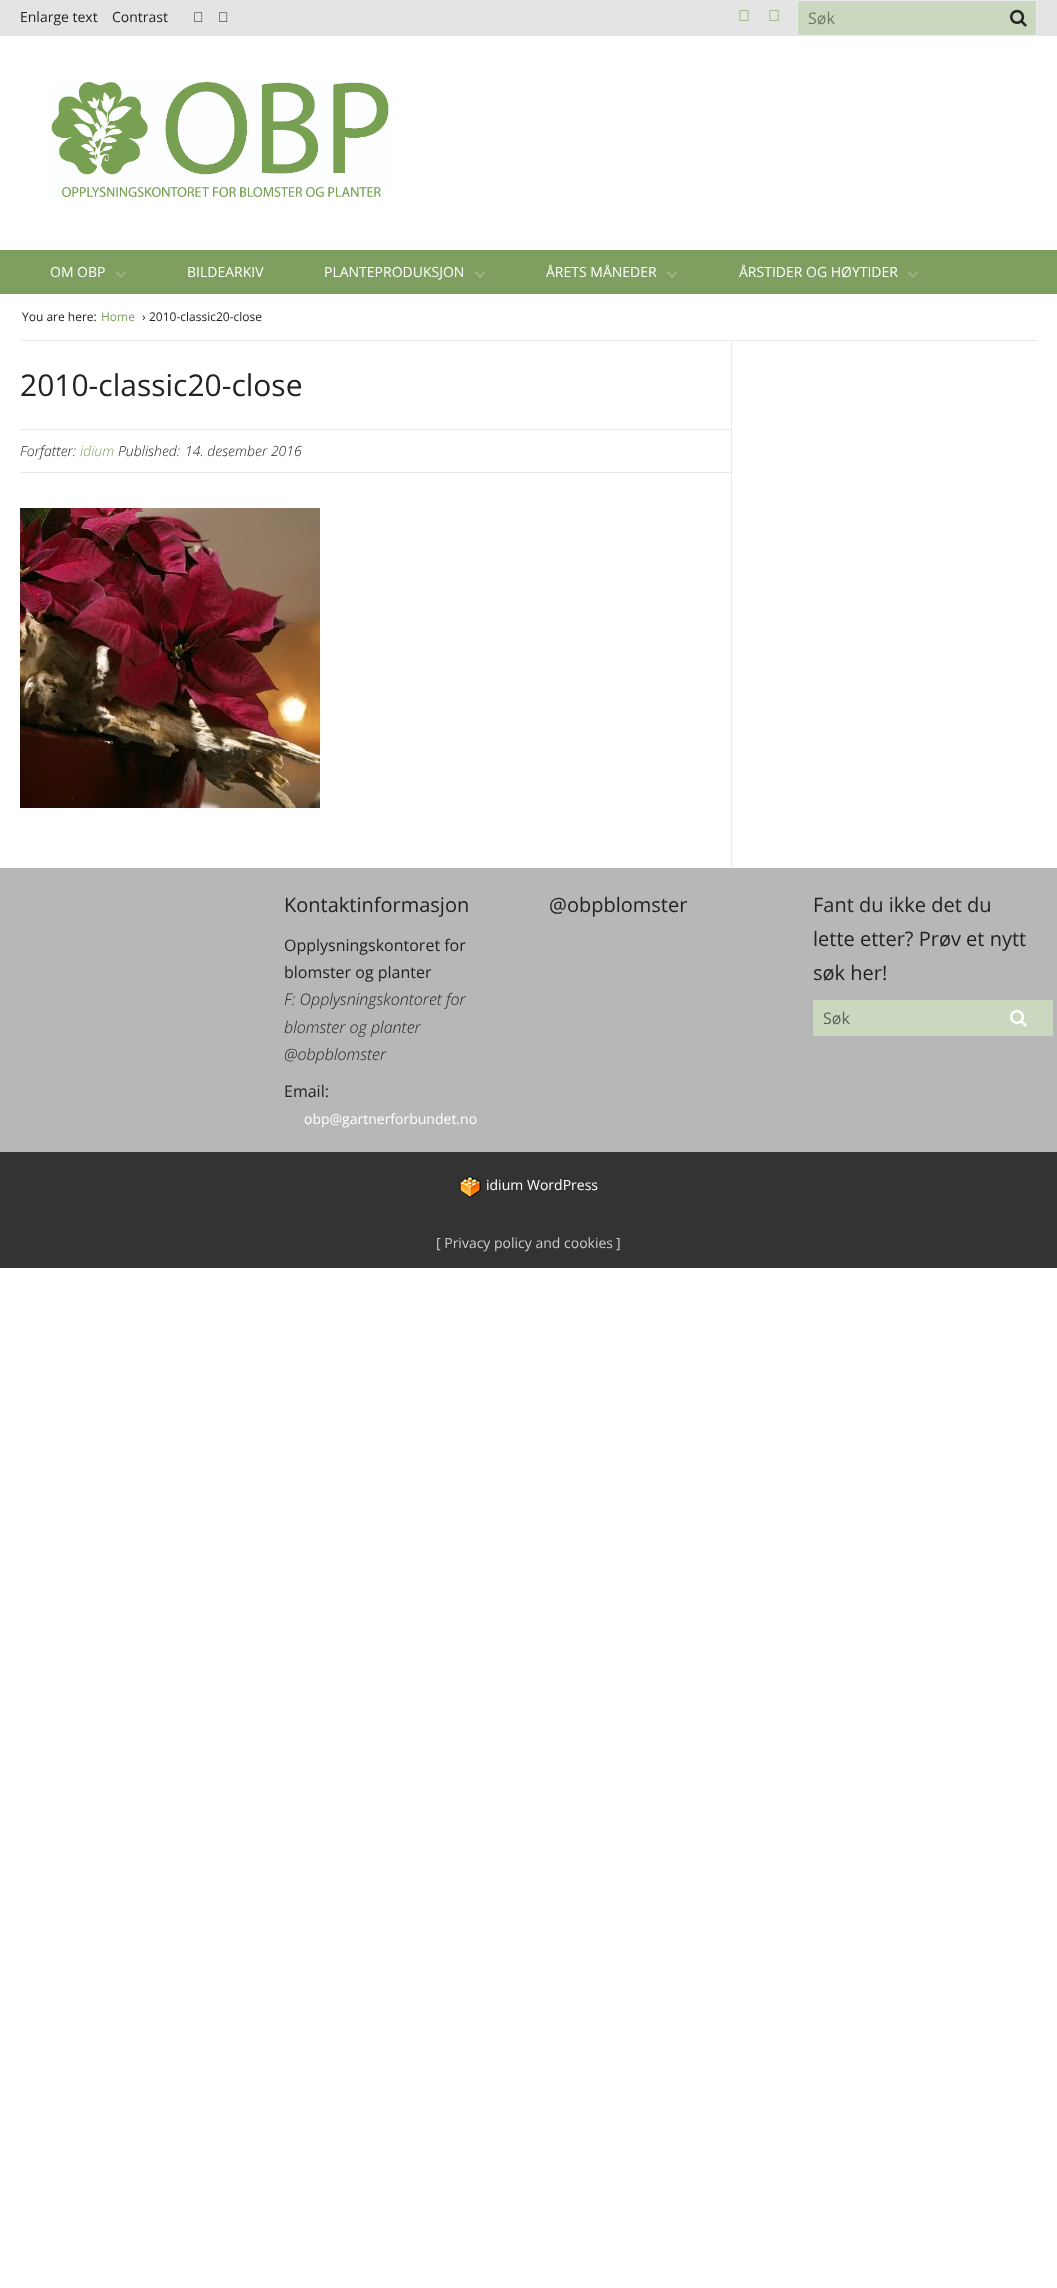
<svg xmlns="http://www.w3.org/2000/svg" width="1057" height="2288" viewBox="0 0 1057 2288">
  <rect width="100%" height="100%" fill="#fff"/>
  <path d="M0 0h1057v36H0z" fill="#e4e4e4"/>
  <path d="M178 6h1v21H178z" fill="#eaeaea"/>
  <image x="194" y="12" width="9" height="10" href="img/1.png"/>
  <image x="219" y="12" width="9" height="10" href="img/1.png"/>
  <image x="739" y="10" width="10" height="11" href="img/2.png"/>
  <image x="769" y="10" width="10" height="11" href="img/2.png"/>
  <path d="M797.5 0.5h239v35H797.5z" fill="#cad8bf" stroke="#eaeaea"/>
  <image x="1010" y="9" width="17" height="18" href="img/3.png"/>
  <image x="51" y="82" width="338" height="115" href="img/4.png"/>
  <path d="M0 250h1057v44H0z" fill="#7f9f60"/>
  <image x="115" y="271" width="12" height="7" href="img/5.png"/>
  <image x="474" y="271" width="12" height="7" href="img/5.png"/>
  <image x="666" y="271" width="12" height="7" href="img/5.png"/>
  <image x="907" y="271" width="12" height="7" href="img/5.png"/>
  <path d="M20 340h1017v1H20z" fill="#eaeaea"/>
  <path d="M731 341h1v527H731z" fill="#eaeaea"/>
  <path d="M20 429h711v1H20z" fill="#eaeaea"/>
  <path d="M20 472h711v1H20z" fill="#eaeaea"/>
  <image x="20" y="508" width="300" height="300" href="img/6.png"/>
  <path d="M0 868h1057v284H0z" fill="#b7b7b7"/>
  <path d="M813 1000h240v36H813z" fill="#cad8bf"/>
  <image x="1010" y="1009" width="17" height="18" href="img/7.png"/>
  <path d="M0 1152h1057v116H0z" fill="#333"/>
  <image x="459" y="1176" width="22" height="22" href="img/8.png"/>
  <g font-family="Open Sans" font-size="14" fill="#222">
    <text x="20" y="22">Enlarge text</text>
    <text x="112" y="22">Contrast</text>
  </g>
  <text x="808" y="24" font-family="Open Sans" font-size="16" fill="#71776c">Søk</text>
  <g font-family="Open Sans" font-size="14" fill="#fff">
    <text x="50" y="277">OM OBP</text>
    <text x="187" y="277">BILDEARKIV</text>
    <text x="324" y="277">PLANTEPRODUKSJON</text>
    <text x="546" y="277">ÅRETS MÅNEDER</text>
    <text x="739" y="277">ÅRSTIDER OG HØYTIDER</text>
  </g>
  <text x="22" y="321" font-family="Open Sans" font-size="12" fill="#222">You are here:</text>
  <text x="101" y="321" font-family="Open Sans" font-size="12" fill="#7f9f60">Home</text>
  <g font-family="Open Sans" font-size="12" fill="#222">
    <text x="142" y="321">›</text>
    <text x="149" y="321">2010-classic20-close</text>
  </g>
  <text x="20" y="396" font-family="Open Sans" font-size="30" fill="#222">2010-classic20-close</text>
  <text x="20" y="456" font-family="Open Sans" font-size="14" font-weight="300" font-style="italic" fill="#222">Forfatter:</text>
  <text x="80" y="456" font-family="Open Sans" font-size="14" font-weight="300" font-style="italic" fill="#7f9f60">idium</text>
  <g font-family="Open Sans" font-size="14" font-weight="300" font-style="italic" fill="#222">
    <text x="118" y="456">Published:</text>
    <text x="185" y="456">14. desember 2016</text>
  </g>
  <text x="284" y="912" font-family="Open Sans" font-size="20" fill="#222">Kontaktinformasjon</text>
  <g font-family="Open Sans" font-size="16" fill="#222">
    <text x="284" y="951">Opplysningskontoret for</text>
    <text x="284" y="978">blomster og planter</text>
  </g>
  <g font-family="Open Sans" font-size="16" font-weight="300" font-style="italic" fill="#222">
    <text x="284" y="1005">F: Opplysningskontoret for</text>
    <text x="284" y="1033">blomster og planter</text>
    <text x="284" y="1060">@obpblomster</text>
  </g>
  <text x="284" y="1097" font-family="Open Sans" font-size="16" fill="#222">Email:</text>
  <text x="304" y="1124" font-family="Open Sans" font-size="14" fill="#fff">obp@gartnerforbundet.no</text>
  <g font-family="Open Sans" font-size="20" fill="#222">
    <text x="549" y="912">@obpblomster</text>
    <text x="813" y="912">Fant du ikke det du</text>
    <text x="813" y="946">lette etter? Prøv et nytt</text>
    <text x="813" y="980">søk her!</text>
  </g>
  <text x="823" y="1024" font-family="Open Sans" font-size="16" fill="#5d6358">Søk</text>
  <g font-family="Open Sans" font-size="14" fill="#fff">
    <text x="486" y="1190">idium</text>
    <text x="527" y="1190">WordPress</text>
  </g>
  <g font-family="Open Sans" font-size="14" fill="#ccc">
    <text x="436" y="1248">[ Privacy policy and cookies</text>
    <text x="616" y="1248">]</text>
  </g>
</svg>
